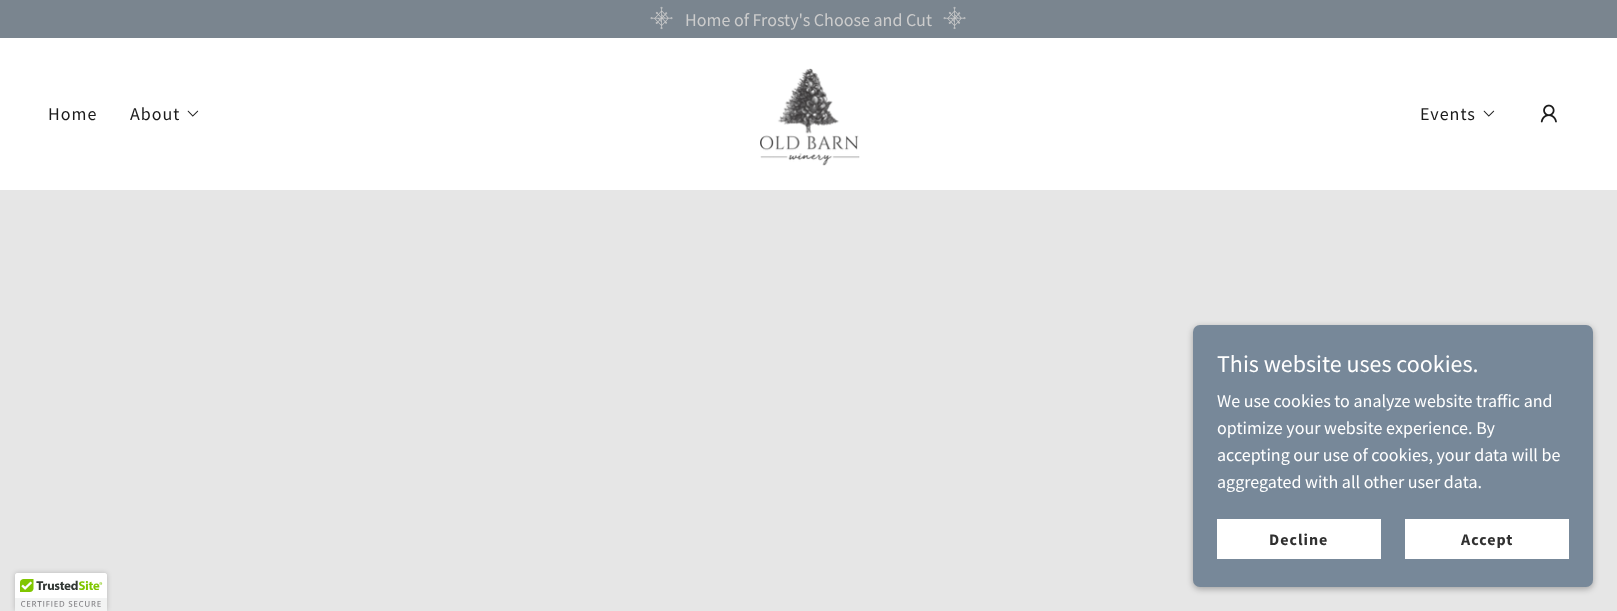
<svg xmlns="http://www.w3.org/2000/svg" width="1617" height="611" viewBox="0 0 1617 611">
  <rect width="100%" height="100%" fill="#fff"/>
  <path d="M0 0h1617v38H0z" fill="#7a858f"/>
  <image x="650" y="6" width="23" height="24" href="img/1.png"/>
  <image x="943" y="6" width="23" height="24" href="img/1.png"/>
  <image x="187" y="110" width="12" height="7" href="img/2.png"/>
  <image x="760" y="68" width="100" height="98" href="img/3.png"/>
  <image x="1483" y="110" width="12" height="7" href="img/2.png"/>
  <image x="1540" y="104" width="17" height="19" href="img/4.png"/>
  <path d="M0 190h1617v300H0z" fill="#e6e6e6"/>
  <path d="M0 490h1617v121H0z" fill="#e6e6e6"/>
  <rect x="1193" y="327" width="400" height="262" rx="7" fill="#0000004d" filter="blur(3px)"/>
  <rect x="1193" y="325" width="400" height="262" rx="7" fill="#789"/>
  <path d="M1217 519h164v40H1217z" fill="#fff"/>
  <path d="M1405 519h164v40H1405z" fill="#fff"/>
  <rect x="15" y="573" width="92" height="38" rx="2" fill="#00000033" filter="blur(2.5px)"/>
  <path d="M17 573H105C106 573 107 574 107 575V611H15V575C15 574 16 573 17 573Z" fill="#fff"/>
  <image x="15" y="579" width="92" height="32" href="img/5.png"/>
  <text x="685" y="26" font-family="Source Sans Pro" font-size="18" fill="#ccc">Home of Frosty's Choose and Cut</text>
  <g font-family="Source Sans Pro" font-size="18" letter-spacing="1" fill="#1b1b1b">
    <text x="48" y="120">Home</text>
    <text x="130" y="120">About</text>
    <text x="1420" y="120">Events</text>
  </g>
  <text x="1217" y="372" font-family="Source Sans Pro" font-size="24" fill="#fff">This website uses cookies.</text>
  <g font-family="Source Sans Pro" font-size="18" fill="#fff">
    <text x="1217" y="407">We use cookies to analyze website traffic and</text>
    <text x="1217" y="434">optimize your website experience. By</text>
    <text x="1217" y="461">accepting our use of cookies, your data will be</text>
    <text x="1217" y="488">aggregated with all other user data.</text>
  </g>
  <g font-family="Source Sans Pro" font-size="16" font-weight="bold" letter-spacing="1" fill="#303030">
    <text x="1269" y="545">Decline</text>
    <text x="1461" y="545">Accept</text>
  </g>
</svg>
